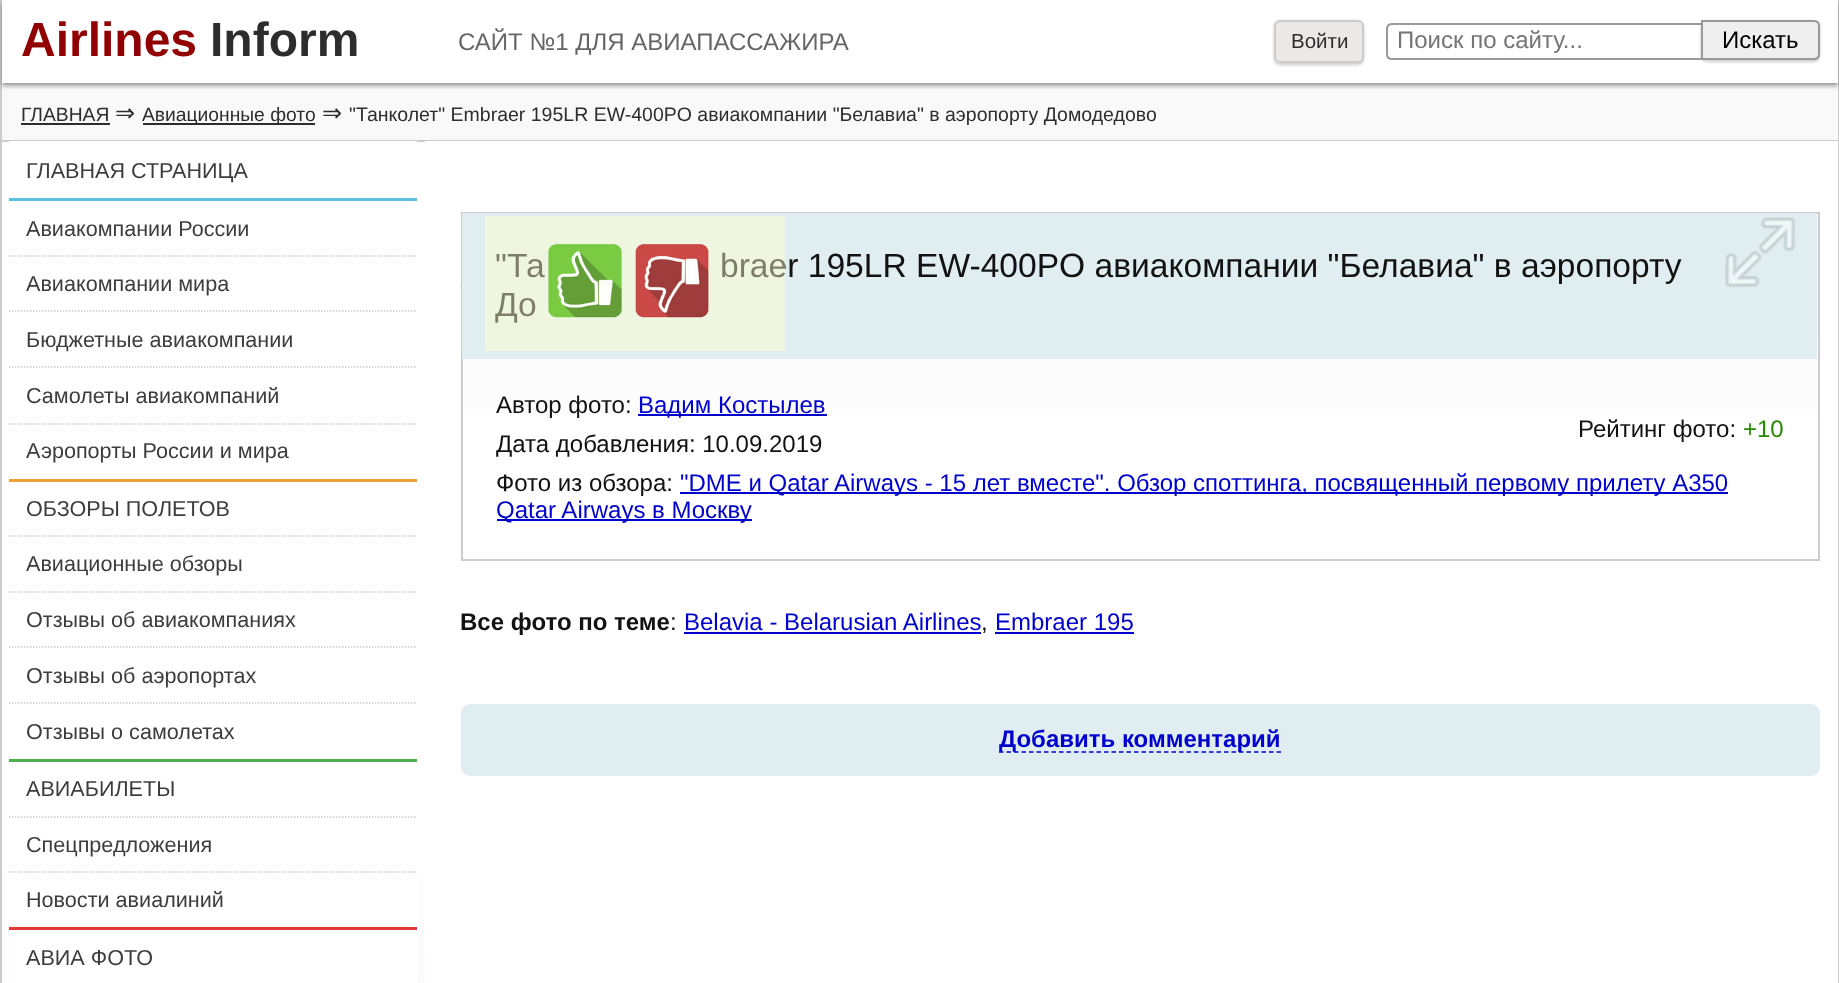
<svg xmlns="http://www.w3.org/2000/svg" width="1839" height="983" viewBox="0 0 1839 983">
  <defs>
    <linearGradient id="g1" gradientUnits="userSpaceOnUse" x1="1.5" y1="0" x2="1.5" y2="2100"><stop offset="0" stop-color="#fff"/><stop offset="1" stop-color="#faf9f9"/></linearGradient>
    <linearGradient id="g2" gradientUnits="userSpaceOnUse" x1="462" y1="213" x2="462" y2="560"><stop offset="0" stop-color="#faf9f9"/><stop offset="1" stop-color="#fff"/></linearGradient>
  </defs>
  <rect width="100%" height="100%" fill="#fff"/>
  <path d="M2 875h1836v108H2z" fill="url(#g1)"/>
  <path d="M1838 0h1v983H1838z" fill="#ccc"/>
  <path d="M0 0h2v983H0z" fill="#ccc"/>
  <path d="M2 87h1836v53H2z" fill="#faf9f9"/>
  <path d="M2 3h1836v83H2z" fill="#00000066" filter="blur(2px)"/>
  <path d="M2 0h1836v83H2z" fill="#fff"/>
  <rect x="1274" y="21" width="90" height="44" rx="6" fill="#00000033" filter="blur(1.5px)"/>
  <rect x="1275" y="21" width="88" height="41" rx="5" fill="#ebe8e8" stroke="#ccc" stroke-width="2"/>
  <path d="M1392 24H1718V59H1392C1389 59 1387 57 1387 54V29C1387 26 1389 24 1392 24Z" fill="none" stroke="#999" stroke-width="2"/>
  <rect x="1701" y="21" width="119" height="41" rx="6" fill="#00000033" filter="blur(1.5px)"/>
  <path d="M1702 21H1814C1817 21 1819 23 1819 26V54C1819 57 1817 59 1814 59H1702Z" fill="#efefef" stroke="#999" stroke-width="2"/>
  <path d="M2 140h1836v2H2z" fill="#ccc"/>
  <path d="M21 123h89v2H21z" fill="#2d2d2d"/>
  <path d="M143 123h172v2H143z" fill="#2d2d2d"/>
  <path d="M9 141h408v842H9z" fill="#fff"/>
  <path d="M9 198h408v3H9z" fill="#5bc0de"/>
  <path d="M9 256H417" fill="none" stroke="#ccc" stroke-width="1.5" stroke-dasharray="1.5 1.5"/>
  <path d="M9 311H417" fill="none" stroke="#ccc" stroke-width="1.5" stroke-dasharray="1.5 1.5"/>
  <path d="M9 367H417" fill="none" stroke="#ccc" stroke-width="1.5" stroke-dasharray="1.5 1.5"/>
  <path d="M9 424H417" fill="none" stroke="#ccc" stroke-width="1.5" stroke-dasharray="1.5 1.5"/>
  <path d="M9 479h408v3H9z" fill="#eea236"/>
  <path d="M9 536H417" fill="none" stroke="#ccc" stroke-width="1.5" stroke-dasharray="1.5 1.5"/>
  <path d="M9 592H417" fill="none" stroke="#ccc" stroke-width="1.5" stroke-dasharray="1.5 1.5"/>
  <path d="M9 647H417" fill="none" stroke="#ccc" stroke-width="1.5" stroke-dasharray="1.5 1.5"/>
  <path d="M9 703H417" fill="none" stroke="#ccc" stroke-width="1.5" stroke-dasharray="1.5 1.5"/>
  <path d="M9 759h408v3H9z" fill="#4cae4c"/>
  <path d="M9 817H417" fill="none" stroke="#ccc" stroke-width="1.5" stroke-dasharray="1.5 1.5"/>
  <path d="M9 872H417" fill="none" stroke="#ccc" stroke-width="1.5" stroke-dasharray="1.5 1.5"/>
  <path d="M9 927h408v3H9z" fill="#e23838"/>
  <path d="M425 141h1413v842H425z" fill="#fff"/>
  <path d="M460.5 287H1819.5" fill="none" stroke="#ccc" stroke-width="1.5" stroke-dasharray="4.5 2.98"/>
  <path d="M463 214h1355v201H463z" fill="url(#g2)"/>
  <path d="M462 213h1357v347H462z" fill="none" stroke="#ccc" stroke-width="2"/>
  <path d="M462 213h1355v146H462z" fill="#e0eef1"/>
  <image x="1725" y="217" width="71" height="71" href="img/3.png"/>
  <path d="M638 414h189v2H638z" fill="#00c"/>
  <path d="M680 492h1048v2H680z" fill="#00c"/>
  <path d="M497 519h255v2H497z" fill="#00c"/>
  <path d="M684 632h297v2H684z" fill="#00c"/>
  <path d="M995 632h139v2H995z" fill="#00c"/>
  <rect x="461" y="704" width="1359" height="72" rx="9" fill="#e0eef1"/>
  <path d="M999 752H1281" fill="none" stroke="#00c" stroke-width="1.5" stroke-dasharray="4.5 3"/>
  <text x="21" y="56" font-family="Liberation Sans" font-size="48" font-weight="bold" fill="#900000">Airlines</text>
  <text x="210" y="56" font-family="Liberation Sans" font-size="48" font-weight="bold" fill="#2d2d2d">Inform</text>
  <text x="458" y="50" font-family="Liberation Sans" font-size="24" fill="#666">САЙТ №1 ДЛЯ АВИАПАССАЖИРА</text>
  <text x="1291" y="48" font-family="Liberation Sans" font-size="20.5" fill="#2d2d2d">Войти</text>
  <text x="1397" y="48" font-family="Liberation Sans" font-size="24" fill="#757575">Поиск по сайту...</text>
  <text x="1722" y="48" font-family="Liberation Sans" font-size="24" fill="#000">Искать</text>
  <text x="21" y="121" font-family="Liberation Sans" font-size="19.25" fill="#2d2d2d">ГЛАВНАЯ</text>
  <text x="115" y="121" font-family="DejaVu Sans" font-size="24" fill="#2d2d2d">⇒</text>
  <text x="142" y="121" font-family="Liberation Sans" font-size="19.25" fill="#2d2d2d">Авиационные фото</text>
  <text x="322" y="121" font-family="DejaVu Sans" font-size="24" fill="#2d2d2d">⇒</text>
  <text x="349" y="121" font-family="Liberation Sans" font-size="19.5" fill="#2d2d2d">"Танколет" Embraer 195LR EW-400PO авиакомпании "Белавиа" в аэропорту Домодедово</text>
  <g font-family="Liberation Sans" font-size="21.6" fill="#3d3d3d">
    <text x="26" y="178">ГЛАВНАЯ СТРАНИЦА</text>
    <text x="26" y="236">Авиакомпании России</text>
    <text x="26" y="291">Авиакомпании мира</text>
    <text x="26" y="347">Бюджетные авиакомпании</text>
    <text x="26" y="403">Самолеты авиакомпаний</text>
    <text x="26" y="458">Аэропорты России и мира</text>
    <text x="26" y="516">ОБЗОРЫ ПОЛЕТОВ</text>
    <text x="26" y="571">Авиационные обзоры</text>
    <text x="26" y="627">Отзывы об авиакомпаниях</text>
    <text x="26" y="683">Отзывы об аэропортах</text>
    <text x="26" y="739">Отзывы о самолетах</text>
    <text x="26" y="796">АВИАБИЛЕТЫ</text>
    <text x="26" y="852">Спецпредложения</text>
    <text x="26" y="907">Новости авиалиний</text>
    <text x="26" y="965">АВИА ФОТО</text>
  </g>
  <g font-family="Liberation Sans" font-size="33.6" fill="#121212">
    <text x="495" y="277">"Та</text>
    <text x="720" y="277">braer 195LR EW-400PO авиакомпании "Белавиа" в аэропорту</text>
    <text x="495" y="316">До</text>
  </g>
  <path d="M485 216h300v135H485z" fill="#ffffcc75"/>
  <image x="635" y="244" width="74" height="74" href="img/2.png"/>
  <image x="548" y="244" width="74" height="74" href="img/1.png"/>
  <text x="496" y="413" font-family="Liberation Sans" font-size="24" fill="#121212">Автор фото:</text>
  <text x="638" y="413" font-family="Liberation Sans" font-size="24" fill="#00c">Вадим Костылев</text>
  <text x="1578" y="437" font-family="Liberation Sans" font-size="24" fill="#121212">Рейтинг фото:</text>
  <text x="1743" y="437" font-family="Liberation Sans" font-size="24" fill="#298705">+10</text>
  <g font-family="Liberation Sans" font-size="24" fill="#121212">
    <text x="496" y="452">Дата добавления: 10.09.2019</text>
    <text x="496" y="491">Фото из обзора:</text>
  </g>
  <g font-family="Liberation Sans" font-size="24" fill="#00c">
    <text x="680" y="491">"DME и Qatar Airways - 15 лет вместе". Обзор споттинга, посвященный первому прилету А350</text>
    <text x="496" y="518">Qatar Airways в Москву</text>
  </g>
  <text x="460" y="630" font-family="Liberation Sans" font-size="24" font-weight="bold" fill="#121212">Все фото по теме</text>
  <text x="670" y="630" font-family="Liberation Sans" font-size="24" fill="#121212">:</text>
  <text x="684" y="630" font-family="Liberation Sans" font-size="24" fill="#00c">Belavia - Belarusian Airlines</text>
  <text x="981" y="630" font-family="Liberation Sans" font-size="24" fill="#121212">,</text>
  <text x="995" y="630" font-family="Liberation Sans" font-size="24" fill="#00c">Embraer 195</text>
  <text x="999" y="747" font-family="Liberation Sans" font-size="24" font-weight="bold" fill="#00c">Добавить комментарий</text>
</svg>
